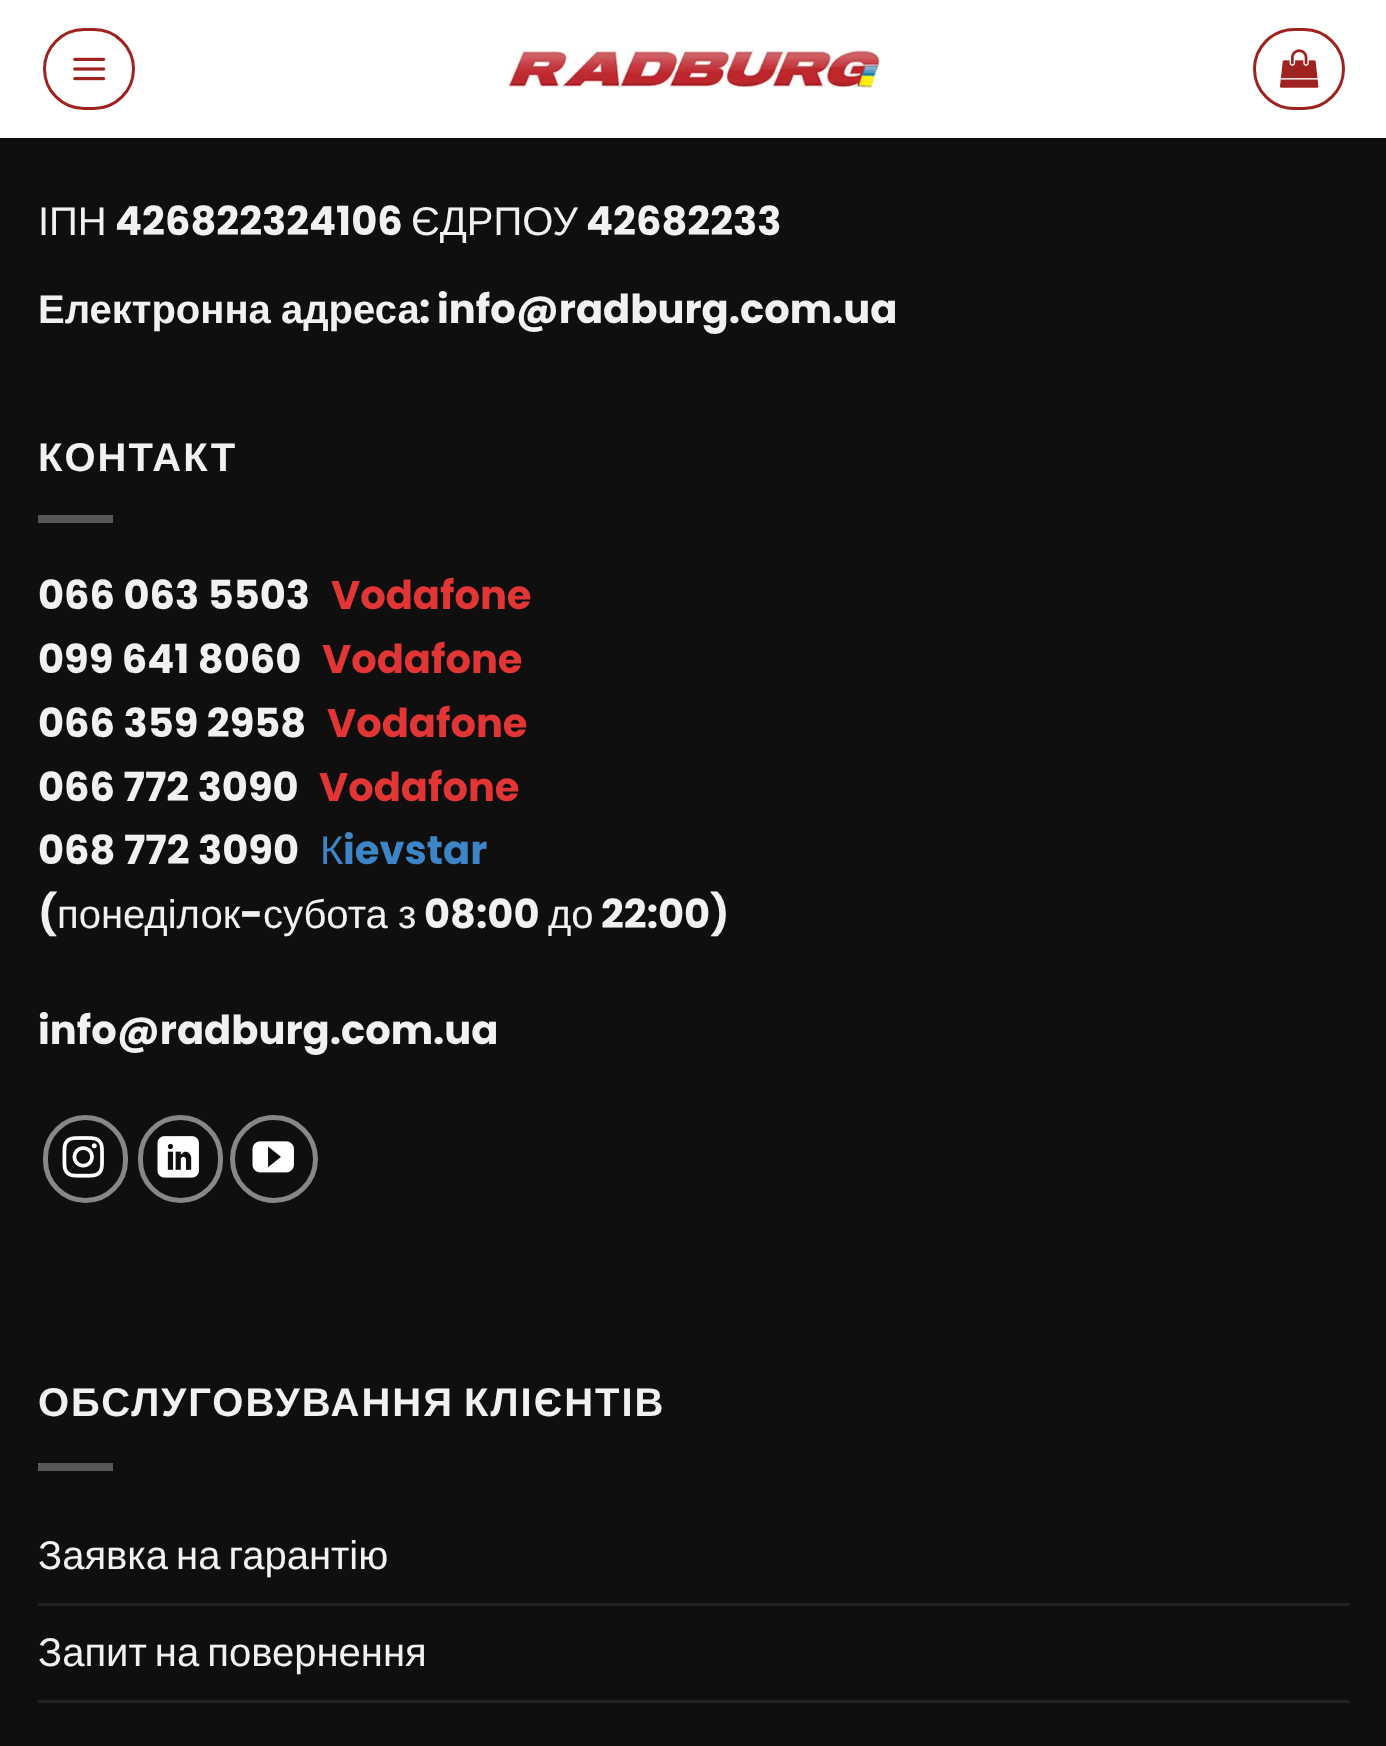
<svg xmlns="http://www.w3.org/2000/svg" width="1386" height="1746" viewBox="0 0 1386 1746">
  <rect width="100%" height="100%" fill="#0f0f0f"/>
  <path d="M0 0h1386v138H0z" fill="#fff"/>
  <rect x="44.5" y="29.5" width="89" height="79" rx="39.5" fill="none" stroke="#9e231e" stroke-width="3"/>
  <image x="73" y="57" width="33" height="24" href="img/1.png"/>
  <image x="507" y="50" width="373" height="38" href="img/2.png"/>
  <rect x="1254.5" y="29.5" width="89" height="79" rx="39.5" fill="none" stroke="#9e231e" stroke-width="3"/>
  <image x="1280" y="49" width="39" height="39" href="img/3.png"/>
  <path d="M38 515h75v8H38z" fill="#575757"/>
  <rect x="45.5" y="1117.5" width="80" height="83" rx="40" fill="none" stroke="#878787" stroke-width="5"/>
  <image x="62" y="1136" width="42" height="42" href="img/4.png"/>
  <rect x="140.5" y="1117.5" width="80" height="83" rx="40" fill="none" stroke="#878787" stroke-width="5"/>
  <image x="157" y="1136" width="42" height="42" href="img/5.png"/>
  <circle cx="274" cy="1159" r="41.5" fill="none" stroke="#878787" stroke-width="5"/>
  <image x="252" y="1141" width="42" height="32" href="img/6.png"/>
  <path d="M38 1463h75v8H38z" fill="#575757"/>
  <path d="M38 1603h1312v3H38z" fill="#222"/>
  <path d="M38 1700h1312v3H38z" fill="#222"/>
  <text x="38" y="235" font-family="Liberation Sans" font-size="40" fill="#f1f1f1">ІПН</text>
  <text x="115" y="235" font-family="Poppins" font-size="40" font-weight="bold" fill="#f1f1f1">426822324106</text>
  <text x="411" y="235" font-family="Liberation Sans" font-size="40" fill="#f1f1f1">ЄДРПОУ</text>
  <text x="586" y="235" font-family="Poppins" font-size="40" font-weight="bold" fill="#f1f1f1">42682233</text>
  <text x="38" y="323" word-spacing="-1" font-family="Liberation Sans" font-size="40" font-weight="bold" fill="#f1f1f1">Електронна адреса</text>
  <g font-family="Poppins" font-size="40" font-weight="bold" fill="#f1f1f1">
    <text x="419" y="323">:</text>
    <text x="437" y="323">info@radburg.com.ua</text>
  </g>
  <text x="38" y="471" font-family="Liberation Sans" font-size="40" font-weight="bold" letter-spacing="2" fill="#f1f1f1">КОНТАКТ</text>
  <text x="38" y="609" font-family="Poppins" font-size="40" font-weight="bold" fill="#f1f1f1">066 063 5503</text>
  <text x="331" y="609" font-family="Poppins" font-size="40" font-weight="bold" fill="#e23535">Vodafone</text>
  <text x="38" y="673" font-family="Poppins" font-size="40" font-weight="bold" fill="#f1f1f1">099 641 8060</text>
  <text x="322" y="673" font-family="Poppins" font-size="40" font-weight="bold" fill="#e23535">Vodafone</text>
  <text x="38" y="737" font-family="Poppins" font-size="40" font-weight="bold" fill="#f1f1f1">066 359 2958</text>
  <text x="327" y="737" font-family="Poppins" font-size="40" font-weight="bold" fill="#e23535">Vodafone</text>
  <text x="38" y="801" font-family="Poppins" font-size="40" font-weight="bold" fill="#f1f1f1">066 772 3090</text>
  <text x="319" y="801" font-family="Poppins" font-size="40" font-weight="bold" fill="#e23535">Vodafone</text>
  <text x="38" y="864" font-family="Poppins" font-size="40" font-weight="bold" fill="#f1f1f1">068 772 3090</text>
  <text x="320" y="864" font-family="Liberation Sans" font-size="40" fill="#3d85c6">К</text>
  <text x="343" y="864" font-family="Poppins" font-size="40" font-weight="bold" fill="#3d85c6">ievstar</text>
  <text x="38" y="928" font-family="Poppins" font-size="40" font-weight="bold" fill="#f1f1f1">(</text>
  <text x="57" y="928" font-family="Liberation Sans" font-size="40" fill="#f1f1f1">понеділок</text>
  <text x="240" y="928" font-family="Poppins" font-size="40" font-weight="bold" fill="#f1f1f1">-</text>
  <text x="263" y="928" word-spacing="-1" font-family="Liberation Sans" font-size="40" fill="#f1f1f1">субота з</text>
  <text x="424" y="928" font-family="Poppins" font-size="40" font-weight="bold" fill="#f1f1f1">08:00</text>
  <text x="548" y="928" font-family="Liberation Sans" font-size="40" fill="#f1f1f1">до</text>
  <g font-family="Poppins" font-size="40" font-weight="bold" fill="#f1f1f1">
    <text x="601" y="928">22:00)</text>
    <text x="38" y="1044">info@radburg.com.ua</text>
  </g>
  <text x="38" y="1416" word-spacing="-3" font-family="Liberation Sans" font-size="40" font-weight="bold" letter-spacing="2" fill="#f1f1f1">ОБСЛУГОВУВАННЯ КЛІЄНТІВ</text>
  <g font-family="Liberation Sans" font-size="40" fill="#f1f1f1">
    <text x="38" y="1569" word-spacing="-3">Заявка на гарантію</text>
    <text x="38" y="1666" word-spacing="-3">Запит на повернення</text>
  </g>
</svg>
